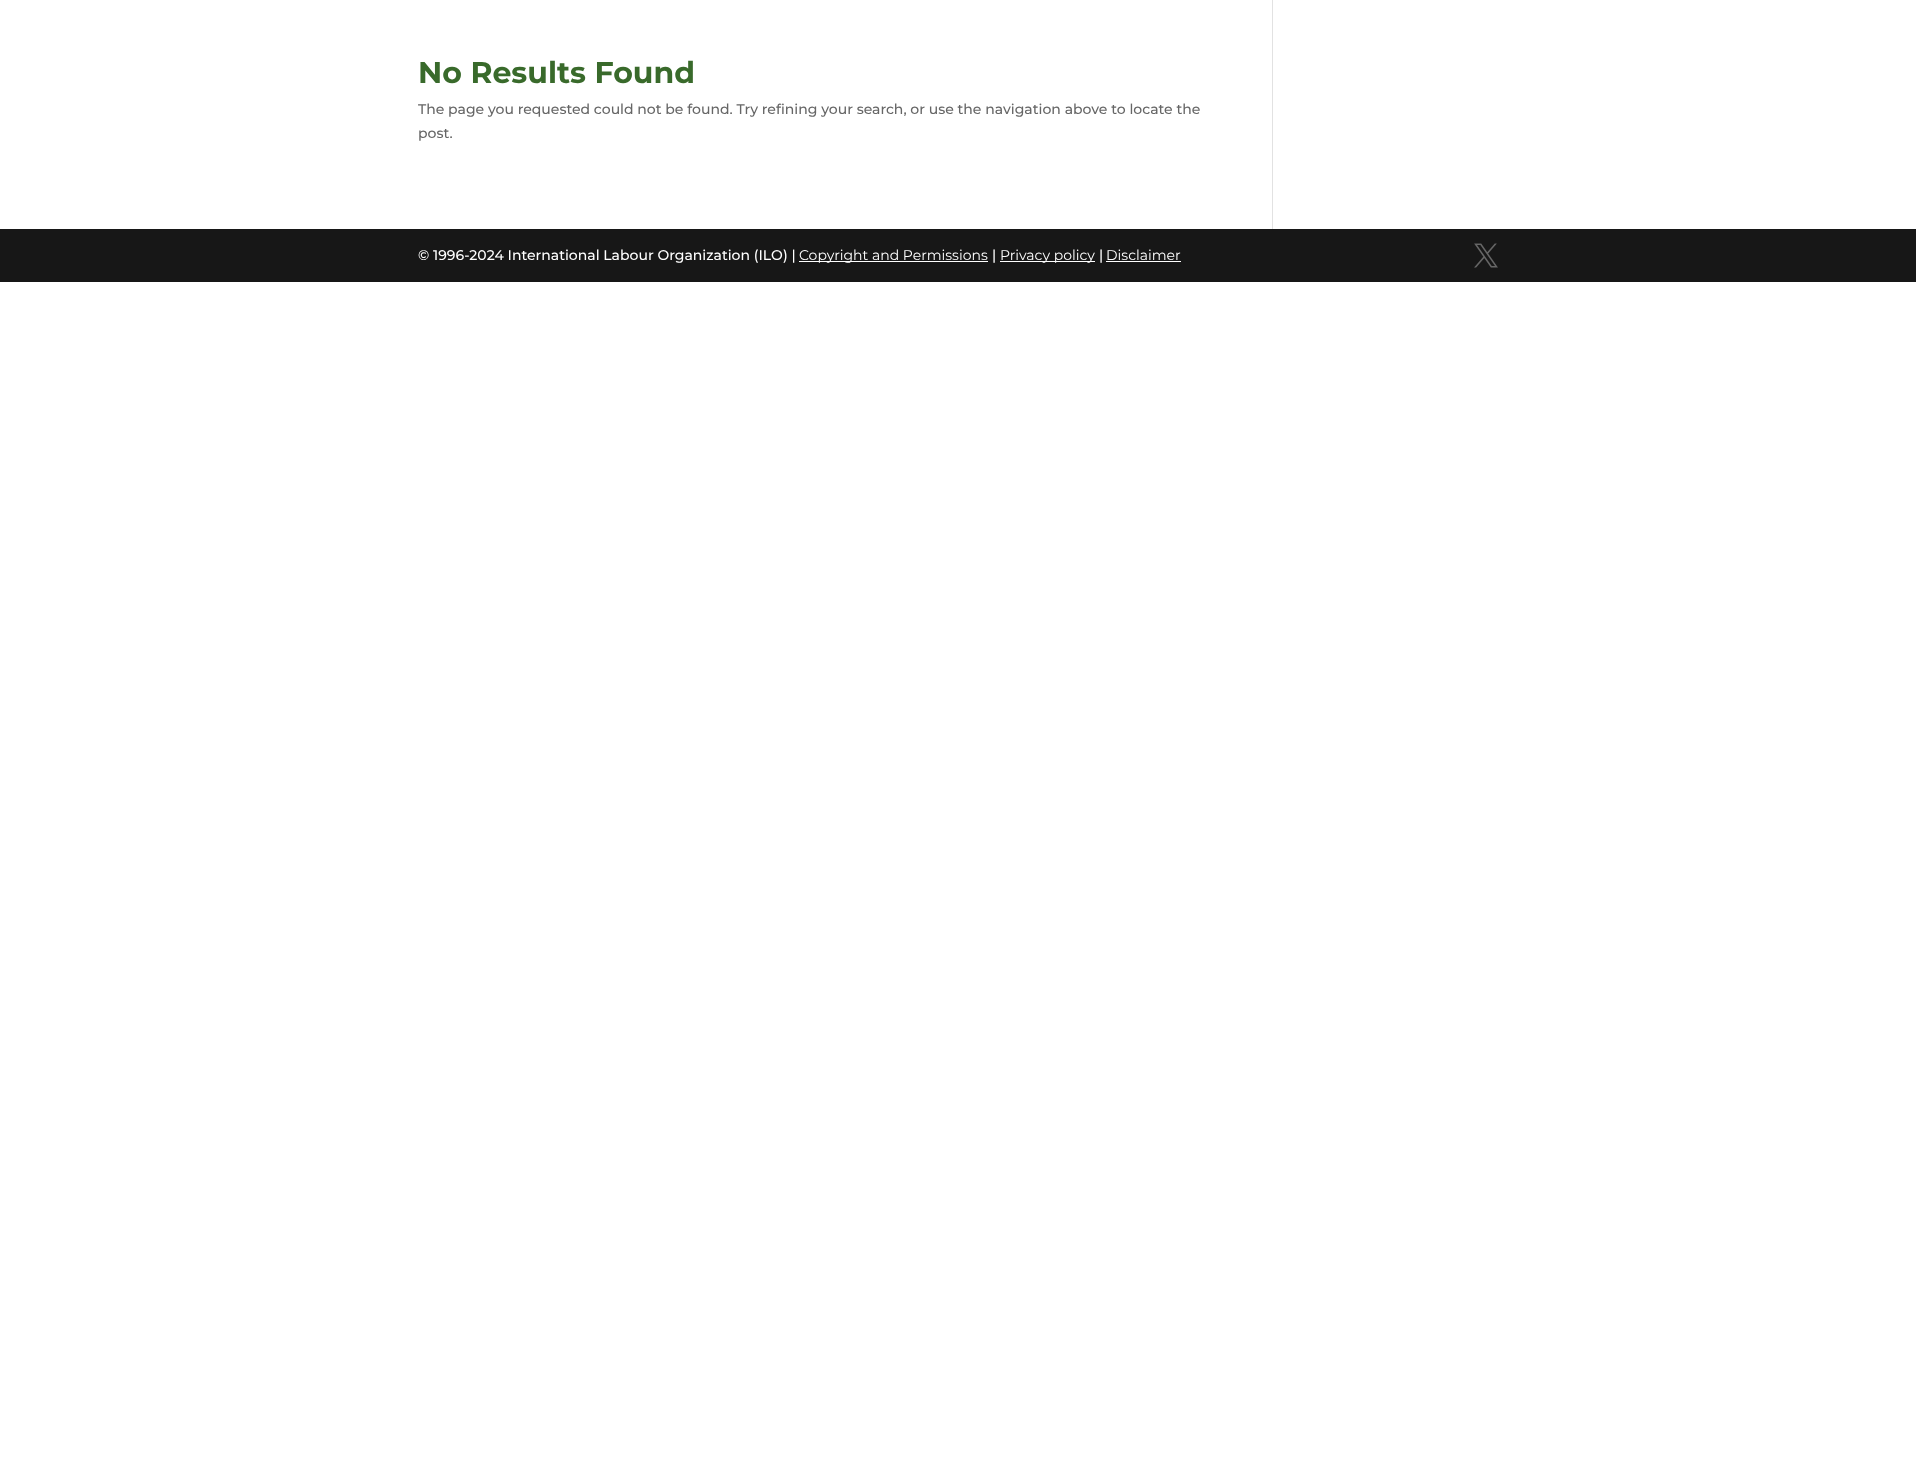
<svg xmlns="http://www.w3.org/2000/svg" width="1916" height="1481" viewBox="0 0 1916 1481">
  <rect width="100%" height="100%" fill="#fff"/>
  <path d="M1272 0h1v229H1272z" fill="#e2e2e2"/>
  <path d="M0 229h1916v53H0z" fill="#171717"/>
  <path d="M799 261h189v1H799z" fill="#fff"/>
  <path d="M1000 261h95v1H1000z" fill="#fff"/>
  <path d="M1106 261h75v1H1106z" fill="#fff"/>
  <image x="1474" y="243" width="24" height="25" href="img/1.png"/>
  <text x="418" y="83" font-family="Montserrat" font-size="30" font-weight="bold" fill="#396a2b">No Results Found</text>
  <g font-family="Montserrat" font-size="14" font-weight="500" fill="#666">
    <text x="418" y="114">The page you requested could not be found. Try refining your search, or use the navigation above to locate the</text>
    <text x="418" y="138">post.</text>
  </g>
  <text x="418" y="260" font-family="Montserrat" font-size="14" font-weight="500" fill="#fff">© 1996-2024 International Labour Organization (ILO) |</text>
  <text x="799" y="260" font-family="Montserrat" font-size="14" fill="#fff">Copyright and Permissions</text>
  <text x="992" y="260" font-family="Montserrat" font-size="14" font-weight="500" fill="#fff">|</text>
  <text x="1000" y="260" font-family="Montserrat" font-size="14" fill="#fff">Privacy policy</text>
  <text x="1099" y="260" font-family="Montserrat" font-size="14" font-weight="500" fill="#fff">|</text>
  <text x="1106" y="260" font-family="Montserrat" font-size="14" fill="#fff">Disclaimer</text>
</svg>
